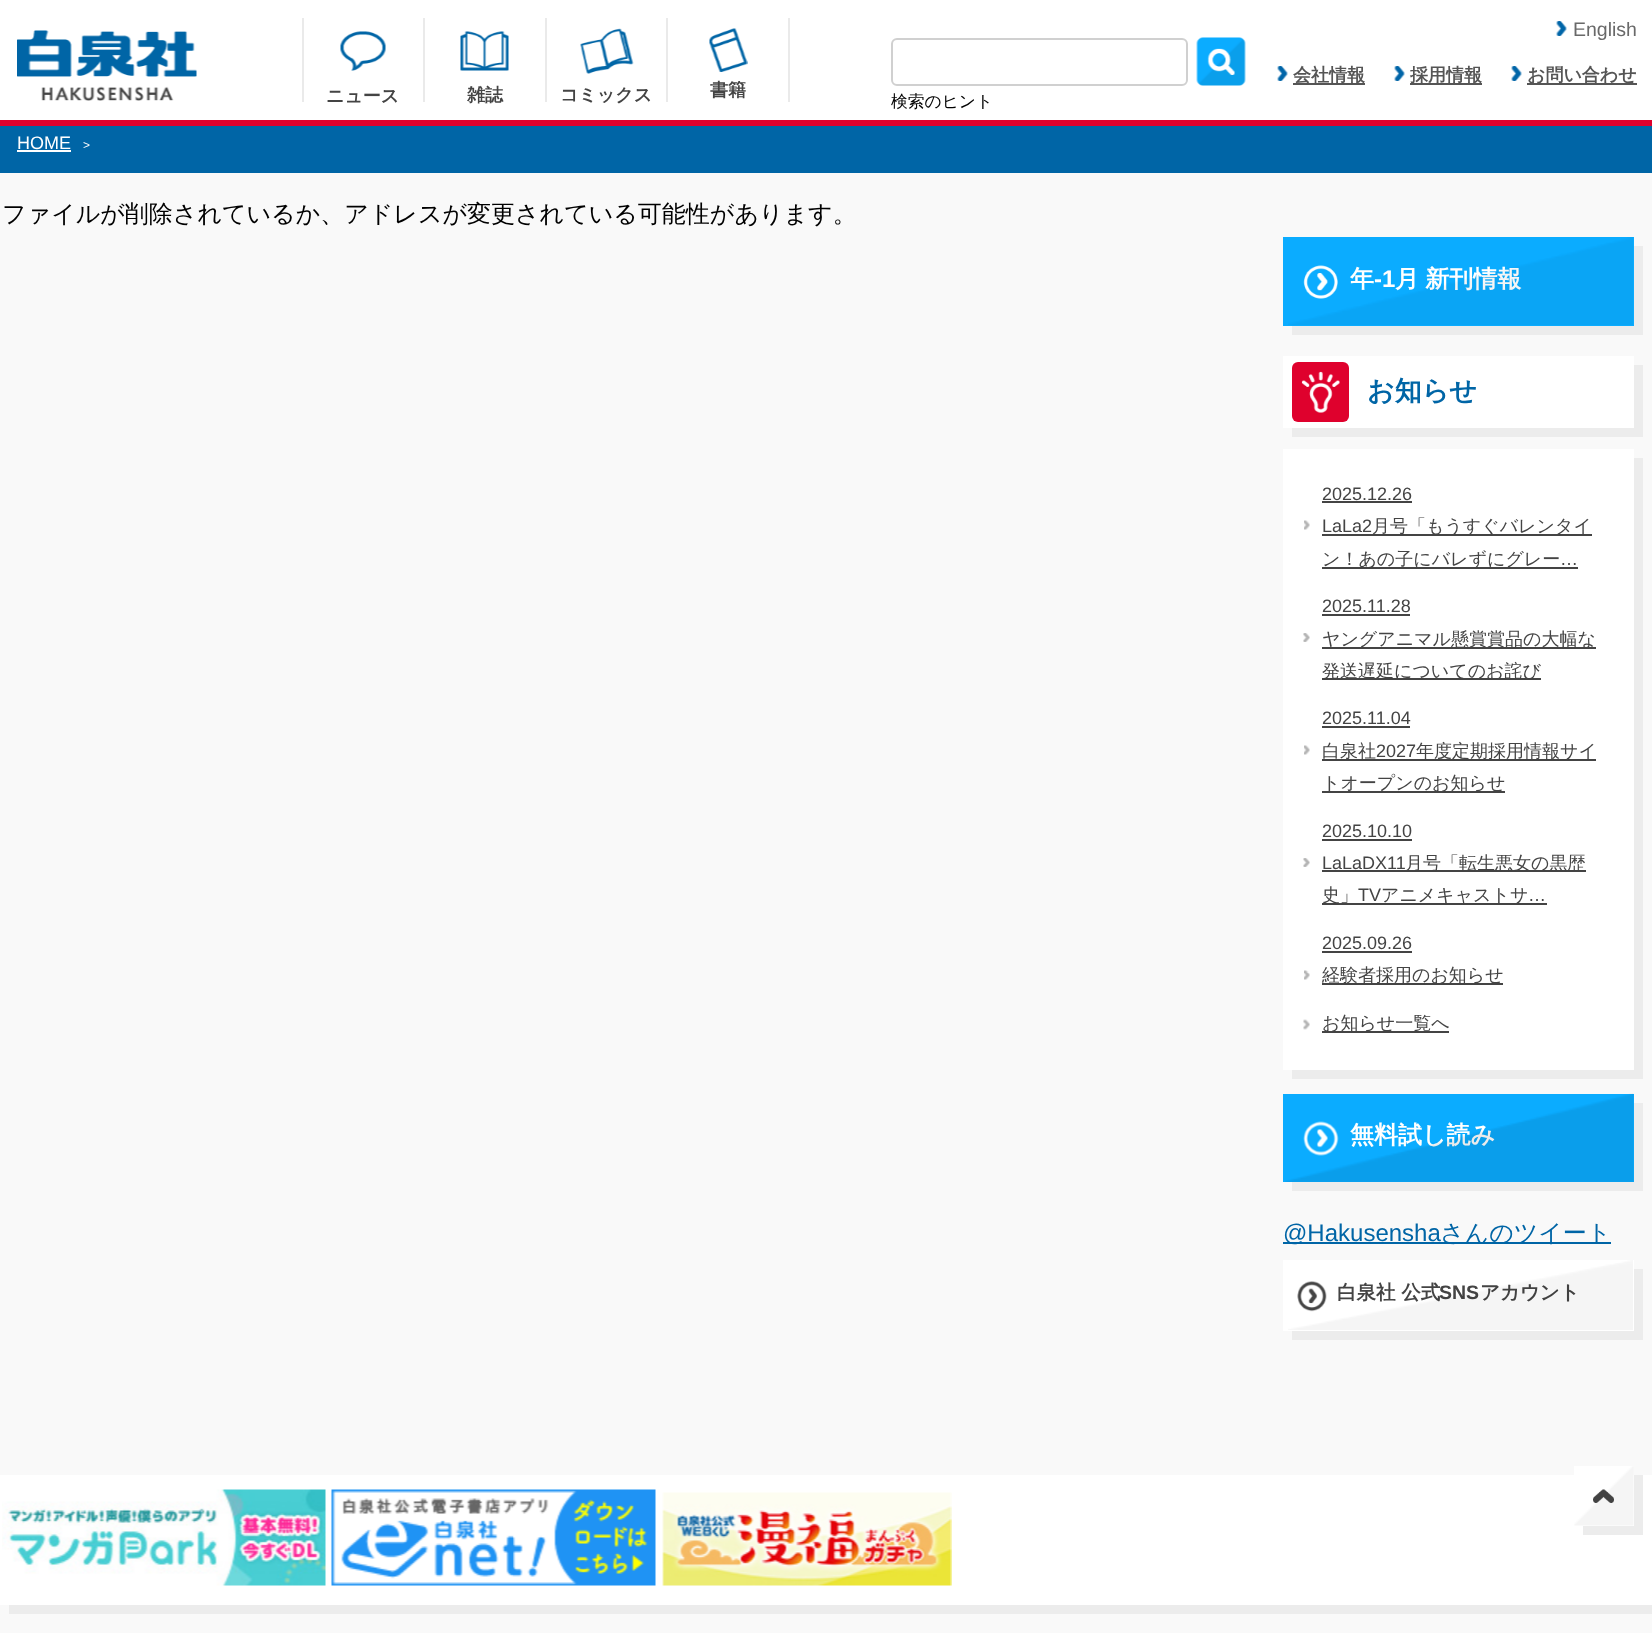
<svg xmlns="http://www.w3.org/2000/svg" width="1652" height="1633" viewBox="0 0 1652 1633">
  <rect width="100%" height="100%" fill="#f9f9f9"/>
  <path d="M0 0h1652v120H0z" fill="#fff"/>
  <path d="M0 120h1652v6H0z" fill="#df012d"/>
  <image x="17" y="30" width="180" height="71" href="img/1.png"/>
  <image x="1556" y="21" width="11" height="15" href="img/2.png"/>
  <path d="M302 18h2v84H302z" fill="#eaeaea"/>
  <image x="340" y="31" width="46" height="40" href="img/3.png"/>
  <path d="M423 18h2v84H423z" fill="#eaeaea"/>
  <image x="460" y="31" width="49" height="40" href="img/4.png"/>
  <path d="M545 18h2v84H545z" fill="#eaeaea"/>
  <image x="580" y="28" width="54" height="46" href="img/5.png"/>
  <path d="M788 18h2v84H788z" fill="#eaeaea"/>
  <path d="M666 18h2v84H666z" fill="#eaeaea"/>
  <image x="709" y="28" width="39" height="44" href="img/6.png"/>
  <image x="1277" y="66" width="11" height="15" href="img/2.png"/>
  <path d="M1293 83h72v2H1293z" fill="#555"/>
  <image x="1394" y="66" width="11" height="15" href="img/2.png"/>
  <path d="M1410 83h72v2H1410z" fill="#555"/>
  <image x="1511" y="66" width="11" height="15" href="img/2.png"/>
  <path d="M1527 83h110v2H1527z" fill="#555"/>
  <rect x="892" y="39" width="295" height="46" rx="5" fill="none" stroke="#d0d0d0" stroke-width="2"/>
  <image x="1196" y="37" width="50" height="49" href="img/7.png"/>
  <path d="M0 126h1652v47H0z" fill="#0065a6"/>
  <path d="M17 150h54v2H17z" fill="#fff"/>
  <path d="M1292 326V335H1643V246H1634V326Z" fill="#ececec"/>
  <path d="M1283 237h351v89H1283z" fill="#0bacff"/>
  <image x="1303" y="265" width="35" height="34" href="img/8.png"/>
  <path d="M1292 428V437H1643V365H1634V428Z" fill="#ececec"/>
  <path d="M1283 356h351v72H1283z" fill="#fff"/>
  <rect x="1292" y="362" width="57" height="60" rx="6" fill="#df012d"/>
  <image x="1301" y="371" width="39" height="42" href="img/10.png"/>
  <path d="M1292 1070V1079H1643V458H1634V1070Z" fill="#ececec"/>
  <path d="M1283 449h351v621H1283z" fill="#fff"/>
  <image x="1304" y="520" width="6" height="10" href="img/11.png"/>
  <path d="M1322 501h90v2H1322z" fill="#444"/>
  <path d="M1322 534h270v2H1322z" fill="#444"/>
  <path d="M1322 567h256v2H1322z" fill="#444"/>
  <image x="1303" y="633" width="7" height="9" href="img/12.png"/>
  <path d="M1322 614h88v2H1322z" fill="#444"/>
  <path d="M1322 647h274v2H1322z" fill="#444"/>
  <path d="M1322 678h219v2H1322z" fill="#444"/>
  <image x="1304" y="745" width="6" height="10" href="img/11.png"/>
  <path d="M1322 726h88v2H1322z" fill="#444"/>
  <path d="M1322 759h274v2H1322z" fill="#444"/>
  <path d="M1322 791h183v2H1322z" fill="#444"/>
  <image x="1303" y="858" width="7" height="9" href="img/12.png"/>
  <path d="M1322 839h90v2H1322z" fill="#444"/>
  <path d="M1322 870h264v2H1322z" fill="#444"/>
  <path d="M1322 903h225v2H1322z" fill="#444"/>
  <image x="1304" y="970" width="6" height="10" href="img/13.png"/>
  <path d="M1322 951h90v2H1322z" fill="#444"/>
  <path d="M1322 983h181v2H1322z" fill="#444"/>
  <image x="1303" y="1019" width="7" height="11" href="img/14.png"/>
  <path d="M1322 1031h127v2H1322z" fill="#444"/>
  <path d="M1292 1182V1191H1643V1103H1634V1182Z" fill="#ececec"/>
  <path d="M1283 1094h351v88H1283z" fill="#0bacff"/>
  <image x="1303" y="1121" width="36" height="35" href="img/15.png"/>
  <path d="M1283 1242h328v2H1283z" fill="#0065a6"/>
  <path d="M1292 1330V1340H1643V1269H1634V1330Z" fill="#ececec"/>
  <path d="M1283 1260h351v71H1283z" fill="#fff"/>
  <image x="1297" y="1281" width="30" height="31" href="img/17.png"/>
  <path d="M9 1605V1614H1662V1484H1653V1605Z" fill="#ececec"/>
  <path d="M0 1475h1652v130H0z" fill="#fff"/>
  <image x="2" y="1489" width="324" height="97" href="img/19.png"/>
  <image x="331" y="1489" width="325" height="97" href="img/20.png"/>
  <image x="662" y="1492" width="290" height="94" href="img/21.png"/>
  <path d="M1583 1526V1535H1643V1475H1634V1526Z" fill="#ececec"/>
  <image x="1574" y="1466" width="60" height="60" href="img/22.png"/>
  <image x="1593" y="1489" width="21" height="14" href="img/23.png"/>
  <text x="1573" y="36" font-family="Liberation Sans" font-size="19.5" fill="#696969">English</text>
  <g font-family="WenQuanYi Zen Hei" font-size="18" font-weight="bold" fill="#444">
    <text x="326" y="102">ニュース</text>
    <text x="467" y="101">雑誌</text>
    <text x="560" y="101">コミックス</text>
    <text x="710" y="96">書籍</text>
  </g>
  <g font-family="WenQuanYi Zen Hei" font-size="18" font-weight="bold" fill="#555">
    <text x="1293" y="81">会社情報</text>
    <text x="1410" y="81">採用情報</text>
    <text x="1527" y="81">お問い合わせ</text>
  </g>
  <text x="891" y="107" font-family="WenQuanYi Zen Hei" font-size="16.75" font-weight="500" fill="#000">検索のヒント</text>
  <text x="17" y="149" font-family="Liberation Sans" font-size="18" fill="#fff">HOME</text>
  <text x="83" y="149" font-family="Liberation Sans" font-size="12" fill="#fff">&gt;</text>
  <text x="2" y="222" font-family="WenQuanYi Zen Hei" font-size="24" font-weight="500" fill="#000">ファイルが削除されているか、アドレスが変更されている可能性があります。</text>
  <text x="1350" y="287" font-family="WenQuanYi Zen Hei" font-size="24" font-weight="bold" fill="#fff">年</text>
  <text x="1374" y="287" font-family="Liberation Sans" font-size="24" font-weight="bold" fill="#fff">-1</text>
  <text x="1395" y="287" word-spacing="-1" font-family="WenQuanYi Zen Hei" font-size="24" font-weight="bold" fill="#fff">月 新刊情報</text>
  <image x="1288" y="237" width="345" height="88" href="img/9.png"/>
  <text x="1367" y="400" font-family="WenQuanYi Zen Hei" font-size="27" font-weight="bold" fill="#0065a6">お知らせ</text>
  <g font-family="Liberation Sans" font-size="18" fill="#444">
    <text x="1322" y="500">2025.12.26</text>
    <text x="1322" y="532">LaLa2</text>
  </g>
  <g font-family="WenQuanYi Zen Hei" font-size="18" font-weight="500" fill="#444">
    <text x="1372" y="532">月号「もうすぐバレンタイ</text>
    <text x="1322" y="565">ン！あの子にバレずにグレー</text>
  </g>
  <g font-family="Liberation Sans" font-size="18" fill="#444">
    <text x="1560" y="565">…</text>
    <text x="1322" y="612">2025.11.28</text>
  </g>
  <g font-family="WenQuanYi Zen Hei" font-size="18" font-weight="500" fill="#444">
    <text x="1322" y="645">ヤングアニマル懸賞賞品の大幅な</text>
    <text x="1322" y="677">発送遅延についてのお詫び</text>
  </g>
  <text x="1322" y="724" font-family="Liberation Sans" font-size="18" fill="#444">2025.11.04</text>
  <text x="1322" y="757" font-family="WenQuanYi Zen Hei" font-size="18" font-weight="500" fill="#444">白泉社</text>
  <text x="1376" y="757" font-family="Liberation Sans" font-size="18" fill="#444">2027</text>
  <g font-family="WenQuanYi Zen Hei" font-size="18" font-weight="500" fill="#444">
    <text x="1416" y="757">年度定期採用情報サイ</text>
    <text x="1322" y="789">トオープンのお知らせ</text>
  </g>
  <g font-family="Liberation Sans" font-size="18" fill="#444">
    <text x="1322" y="837">2025.10.10</text>
    <text x="1322" y="869">LaLaDX11</text>
  </g>
  <g font-family="WenQuanYi Zen Hei" font-size="18" font-weight="500" fill="#444">
    <text x="1405" y="869">月号「転生悪女の黒歴</text>
    <text x="1322" y="901">史」</text>
  </g>
  <text x="1358" y="901" font-family="Liberation Sans" font-size="18" fill="#444">TV</text>
  <text x="1381" y="901" font-family="WenQuanYi Zen Hei" font-size="18" font-weight="500" fill="#444">アニメキャストサ</text>
  <g font-family="Liberation Sans" font-size="18" fill="#444">
    <text x="1528" y="901">…</text>
    <text x="1322" y="949">2025.09.26</text>
  </g>
  <g font-family="WenQuanYi Zen Hei" font-size="18" font-weight="500" fill="#444">
    <text x="1322" y="981">経験者採用のお知らせ</text>
    <text x="1322" y="1029">お知らせ一覧へ</text>
  </g>
  <text x="1350" y="1143" font-family="WenQuanYi Zen Hei" font-size="24" font-weight="bold" fill="#fff">無料試し読み</text>
  <image x="1285" y="1093" width="349" height="89" href="img/16.png"/>
  <text x="1283" y="1241" font-family="Liberation Sans" font-size="24" fill="#0065a6">@Hakusensha</text>
  <text x="1440" y="1241" font-family="WenQuanYi Zen Hei" font-size="24" font-weight="500" fill="#0065a6">さんのツイート</text>
  <text x="1337" y="1299" font-family="WenQuanYi Zen Hei" font-size="19.5" font-weight="bold" fill="#444">白泉社 公式</text>
  <text x="1439" y="1299" font-family="Liberation Sans" font-size="19.5" font-weight="bold" fill="#444">SNS</text>
  <text x="1480" y="1299" font-family="WenQuanYi Zen Hei" font-size="19.5" font-weight="bold" fill="#444">アカウント</text>
  <image x="1288" y="1260" width="345" height="70" href="img/18.png"/>
</svg>
